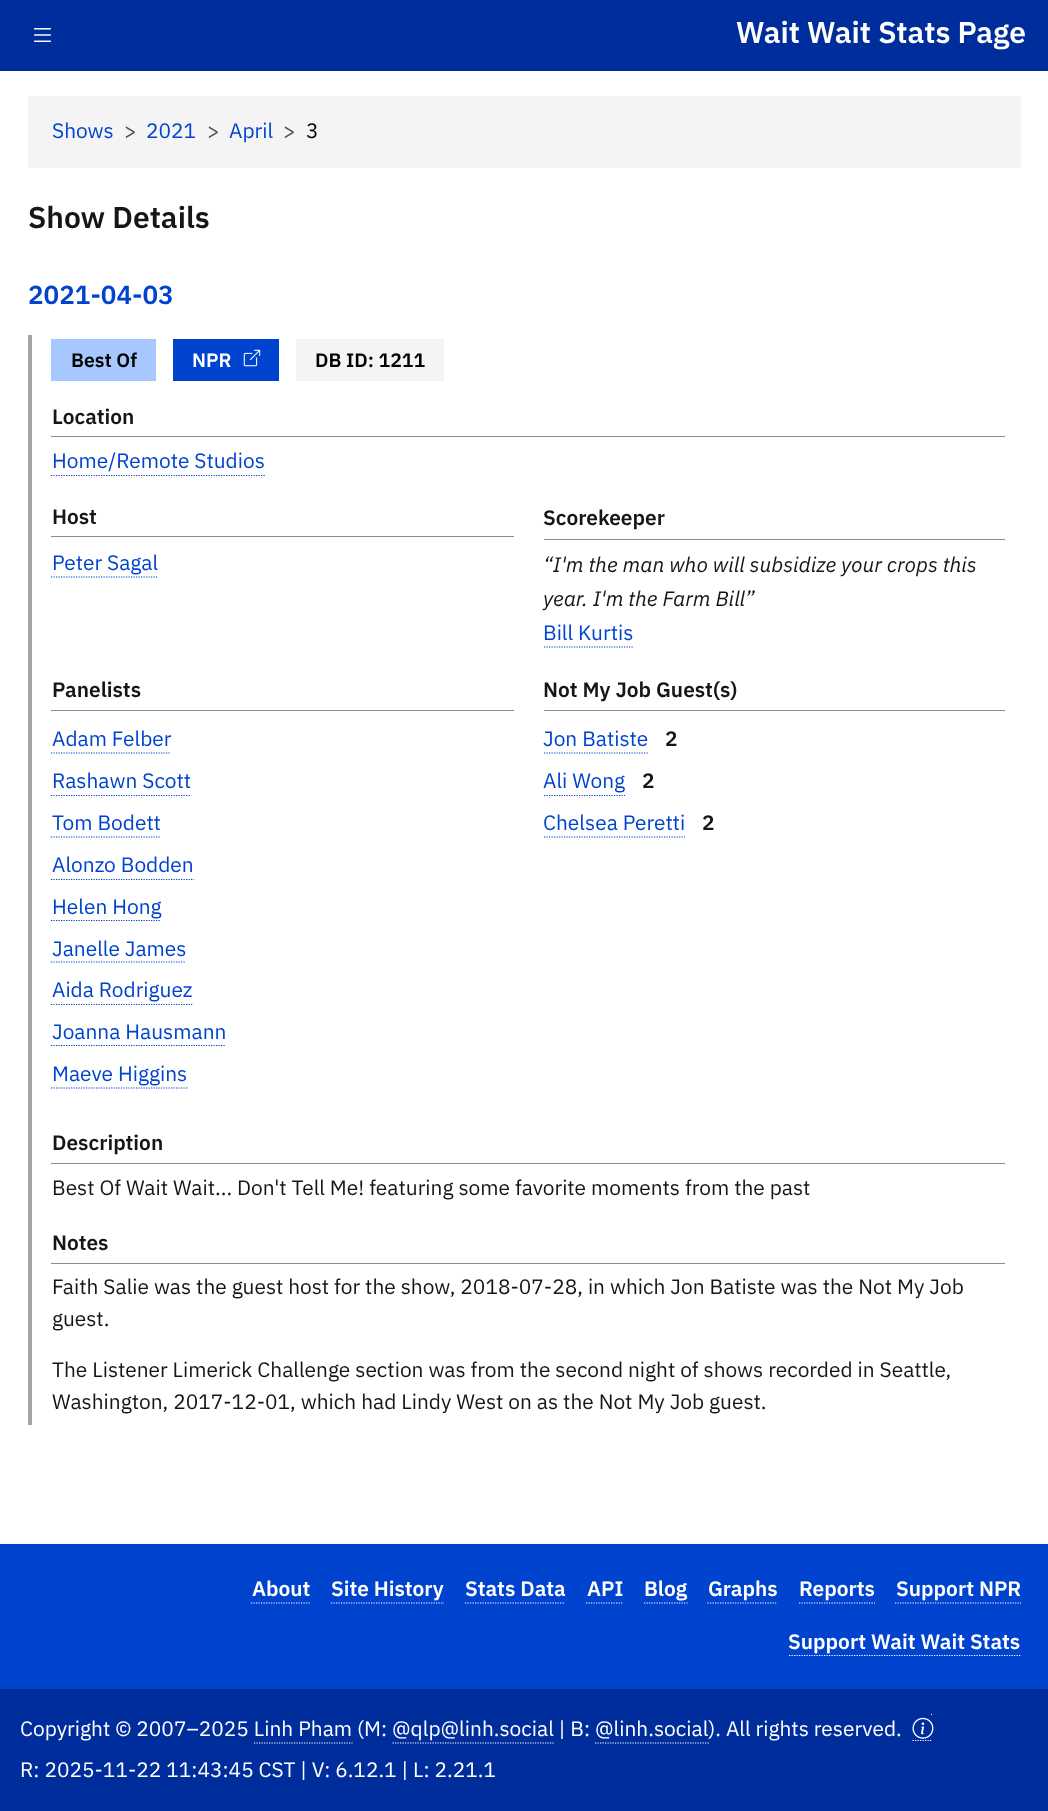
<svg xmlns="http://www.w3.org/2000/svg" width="1048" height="1811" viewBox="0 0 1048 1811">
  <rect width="100%" height="100%" fill="#fff"/>
  <path d="M0 0h1048v71H0z" fill="#002d9c"/>
  <image x="34" y="28" width="17" height="14" href="img/1.png"/>
  <path d="M28 96h993v72H28z" fill="#f4f4f4"/>
  <path d="M28 335h4v1090H28z" fill="#a4a4a4"/>
  <path d="M51 339h105v42H51z" fill="#a6c8ff"/>
  <path d="M173 339h106v42H173z" fill="#0043ce"/>
  <image x="243" y="349" width="18" height="18" href="img/2.png"/>
  <path d="M296 339h148v42H296z" fill="#f4f4f4"/>
  <path d="M51 436h954v1H51z" fill="#8d8d8d"/>
  <path d="M51 475.5H265" fill="none" stroke="#0043ce" stroke-width="1.2" stroke-dasharray="1.25 1.25"/>
  <path d="M51 536h463v1H51z" fill="#8d8d8d"/>
  <path d="M51 577H157.5" fill="none" stroke="#0043ce" stroke-width="1.2" stroke-dasharray="1.25 1.25"/>
  <path d="M544 539h461v1H544z" fill="#8d8d8d"/>
  <path d="M544 647H634" fill="none" stroke="#0043ce" stroke-width="1.2" stroke-dasharray="1.25 1.25"/>
  <path d="M51 710h463v1H51z" fill="#8d8d8d"/>
  <path d="M51 753H171" fill="none" stroke="#0043ce" stroke-width="1.2" stroke-dasharray="1.25 1.25"/>
  <path d="M51 795.5H191" fill="none" stroke="#0043ce" stroke-width="1.2" stroke-dasharray="1.25 1.25"/>
  <path d="M51 837H161" fill="none" stroke="#0043ce" stroke-width="1.2" stroke-dasharray="1.25 1.25"/>
  <path d="M51 879.5H194" fill="none" stroke="#0043ce" stroke-width="1.2" stroke-dasharray="1.25 1.25"/>
  <path d="M51 920.5H161" fill="none" stroke="#0043ce" stroke-width="1.2" stroke-dasharray="1.25 1.25"/>
  <path d="M51 962H186" fill="none" stroke="#0043ce" stroke-width="1.2" stroke-dasharray="1.25 1.25"/>
  <path d="M51 1004.5H192.5" fill="none" stroke="#0043ce" stroke-width="1.2" stroke-dasharray="1.25 1.25"/>
  <path d="M51 1045.5H226" fill="none" stroke="#0043ce" stroke-width="1.2" stroke-dasharray="1.25 1.25"/>
  <path d="M51 1088H187.5" fill="none" stroke="#0043ce" stroke-width="1.2" stroke-dasharray="1.25 1.25"/>
  <path d="M544 710h461v1H544z" fill="#8d8d8d"/>
  <path d="M544 753H649" fill="none" stroke="#0043ce" stroke-width="1.2" stroke-dasharray="1.25 1.25"/>
  <path d="M544 795.5H625" fill="none" stroke="#0043ce" stroke-width="1.2" stroke-dasharray="1.25 1.25"/>
  <path d="M544 837H685" fill="none" stroke="#0043ce" stroke-width="1.2" stroke-dasharray="1.25 1.25"/>
  <path d="M51 1163h954v1H51z" fill="#8d8d8d"/>
  <path d="M51 1263h954v1H51z" fill="#8d8d8d"/>
  <path d="M0 1544h1048v145H0z" fill="#0043ce"/>
  <path d="M251 1603H310" fill="none" stroke="#fff" stroke-width="1.2" stroke-dasharray="1.25 1.25"/>
  <path d="M331 1603H444" fill="none" stroke="#fff" stroke-width="1.2" stroke-dasharray="1.25 1.25"/>
  <path d="M465 1603H565" fill="none" stroke="#fff" stroke-width="1.2" stroke-dasharray="1.25 1.25"/>
  <path d="M586 1603H622.5" fill="none" stroke="#fff" stroke-width="1.2" stroke-dasharray="1.25 1.25"/>
  <path d="M644 1603H687.5" fill="none" stroke="#fff" stroke-width="1.2" stroke-dasharray="1.25 1.25"/>
  <path d="M707.5 1603H777.5" fill="none" stroke="#fff" stroke-width="1.2" stroke-dasharray="1.25 1.25"/>
  <path d="M799 1603H875" fill="none" stroke="#fff" stroke-width="1.2" stroke-dasharray="1.25 1.25"/>
  <path d="M895 1603H1021" fill="none" stroke="#fff" stroke-width="1.2" stroke-dasharray="1.25 1.25"/>
  <path d="M789 1655.5H1021" fill="none" stroke="#fff" stroke-width="1.2" stroke-dasharray="1.25 1.25"/>
  <path d="M0 1689h1048v122H0z" fill="#002d9c"/>
  <path d="M912.5 1740.5H932.5" fill="none" stroke="#fff" stroke-width="1.2" stroke-dasharray="1.25 1.25"/>
  <path d="M931 1714h1v1H931z" fill="#fff"/>
  <image x="912" y="1717" width="22" height="22" href="img/3.png"/>
  <path d="M254 1743H352.5" fill="none" stroke="#fff" stroke-width="1.2" stroke-dasharray="1.25 1.25"/>
  <path d="M392.5 1743H554" fill="none" stroke="#fff" stroke-width="1.2" stroke-dasharray="1.25 1.25"/>
  <path d="M595 1743H709" fill="none" stroke="#fff" stroke-width="1.2" stroke-dasharray="1.25 1.25"/>
  <text x="736" y="43" font-family="IBM Plex Sans" font-size="30" font-weight="600" fill="#fff">Wait Wait Stats Page</text>
  <text x="52" y="138" font-family="IBM Plex Sans" font-size="20.9" fill="#0043ce">Shows</text>
  <text x="124" y="138" font-family="IBM Plex Sans" font-size="20.9" fill="#4e4e4e">&gt;</text>
  <text x="146" y="138" font-family="IBM Plex Sans" font-size="20.9" fill="#0043ce">2021</text>
  <text x="207" y="138" font-family="IBM Plex Sans" font-size="20.9" fill="#4e4e4e">&gt;</text>
  <text x="229" y="138" font-family="IBM Plex Sans" font-size="20.9" fill="#0043ce">April</text>
  <text x="283" y="138" font-family="IBM Plex Sans" font-size="20.9" fill="#4e4e4e">&gt;</text>
  <text x="306" y="138" font-family="IBM Plex Sans" font-size="20.9" fill="#000">3</text>
  <text x="28" y="228" font-family="IBM Plex Sans" font-size="30" font-weight="600" fill="#161616">Show Details</text>
  <text x="28" y="304" font-family="IBM Plex Sans" font-size="26" font-weight="600" fill="#0043ce">2021-04-03</text>
  <text x="71" y="367" font-family="IBM Plex Sans" font-size="19.5" font-weight="600" fill="#000">Best Of</text>
  <text x="192" y="367" font-family="IBM Plex Sans" font-size="19.5" font-weight="600" fill="#fff">NPR</text>
  <text x="315" y="367" font-family="IBM Plex Sans" font-size="19.5" font-weight="600" fill="#000">DB ID: 1211</text>
  <text x="52" y="424" font-family="IBM Plex Sans" font-size="20.9" font-weight="600" fill="#161616">Location</text>
  <text x="52" y="468" font-family="IBM Plex Sans" font-size="20.9" fill="#0043ce">Home/Remote Studios</text>
  <text x="52" y="524" font-family="IBM Plex Sans" font-size="20.9" font-weight="600" fill="#161616">Host</text>
  <text x="52" y="570" font-family="IBM Plex Sans" font-size="20.9" fill="#0043ce">Peter Sagal</text>
  <text x="543" y="525" font-family="IBM Plex Sans" font-size="20.9" font-weight="600" fill="#161616">Scorekeeper</text>
  <g font-family="IBM Plex Sans" font-size="20.9" font-style="italic" fill="#161616">
    <text x="543" y="572">“I'm the man who will subsidize your crops this</text>
    <text x="543" y="606">year. I'm the Farm Bill”</text>
  </g>
  <text x="543" y="640" font-family="IBM Plex Sans" font-size="20.9" fill="#0043ce">Bill Kurtis</text>
  <text x="52" y="697" font-family="IBM Plex Sans" font-size="20.9" font-weight="600" fill="#161616">Panelists</text>
  <g font-family="IBM Plex Sans" font-size="20.9" fill="#0043ce">
    <text x="52" y="746">Adam Felber</text>
    <text x="52" y="788">Rashawn Scott</text>
    <text x="52" y="830">Tom Bodett</text>
    <text x="52" y="872">Alonzo Bodden</text>
    <text x="52" y="914">Helen Hong</text>
    <text x="52" y="956">Janelle James</text>
    <text x="52" y="997">Aida Rodriguez</text>
    <text x="52" y="1039">Joanna Hausmann</text>
    <text x="52" y="1081">Maeve Higgins</text>
  </g>
  <text x="543" y="697" font-family="IBM Plex Sans" font-size="20.9" font-weight="600" fill="#161616">Not My Job Guest(s)</text>
  <text x="543" y="746" font-family="IBM Plex Sans" font-size="20.9" fill="#0043ce">Jon Batiste</text>
  <text x="665" y="746" font-family="IBM Plex Sans" font-size="20.9" font-weight="600" fill="#161616">2</text>
  <text x="543" y="788" font-family="IBM Plex Sans" font-size="20.9" fill="#0043ce">Ali Wong</text>
  <text x="642" y="788" font-family="IBM Plex Sans" font-size="20.9" font-weight="600" fill="#161616">2</text>
  <text x="543" y="830" font-family="IBM Plex Sans" font-size="20.9" fill="#0043ce">Chelsea Peretti</text>
  <g font-family="IBM Plex Sans" font-size="20.9" font-weight="600" fill="#161616">
    <text x="702" y="830">2</text>
    <text x="52" y="1150">Description</text>
  </g>
  <text x="52" y="1195" font-family="IBM Plex Sans" font-size="20.9" fill="#161616">Best Of Wait Wait... Don't Tell Me! featuring some favorite moments from the past</text>
  <text x="52" y="1250" font-family="IBM Plex Sans" font-size="20.9" font-weight="600" fill="#161616">Notes</text>
  <g font-family="IBM Plex Sans" font-size="20.9" fill="#161616">
    <text x="52" y="1294">Faith Salie was the guest host for the show, 2018-07-28, in which Jon Batiste was the Not My Job</text>
    <text x="52" y="1326">guest.</text>
    <text x="52" y="1377">The Listener Limerick Challenge section was from the second night of shows recorded in Seattle,</text>
    <text x="52" y="1409">Washington, 2017-12-01, which had Lindy West on as the Not My Job guest.</text>
  </g>
  <g font-family="IBM Plex Sans" font-size="20.9" font-weight="600" fill="#fff">
    <text x="252" y="1596">About</text>
    <text x="331" y="1596">Site History</text>
    <text x="465" y="1596">Stats Data</text>
    <text x="587" y="1596">API</text>
    <text x="644" y="1596">Blog</text>
    <text x="708" y="1596">Graphs</text>
    <text x="799" y="1596">Reports</text>
    <text x="896" y="1596">Support NPR</text>
    <text x="788" y="1649">Support Wait Wait Stats</text>
  </g>
  <g font-family="IBM Plex Sans" font-size="20.9" fill="#fff">
    <text x="20" y="1736">Copyright © 2007–2025 Linh Pham (M: @qlp@linh.social | B: @linh.social). All rights reserved.</text>
    <text x="20" y="1777">R: 2025-11-22 11:43:45 CST | V: 6.12.1 | L: 2.21.1</text>
  </g>
</svg>
